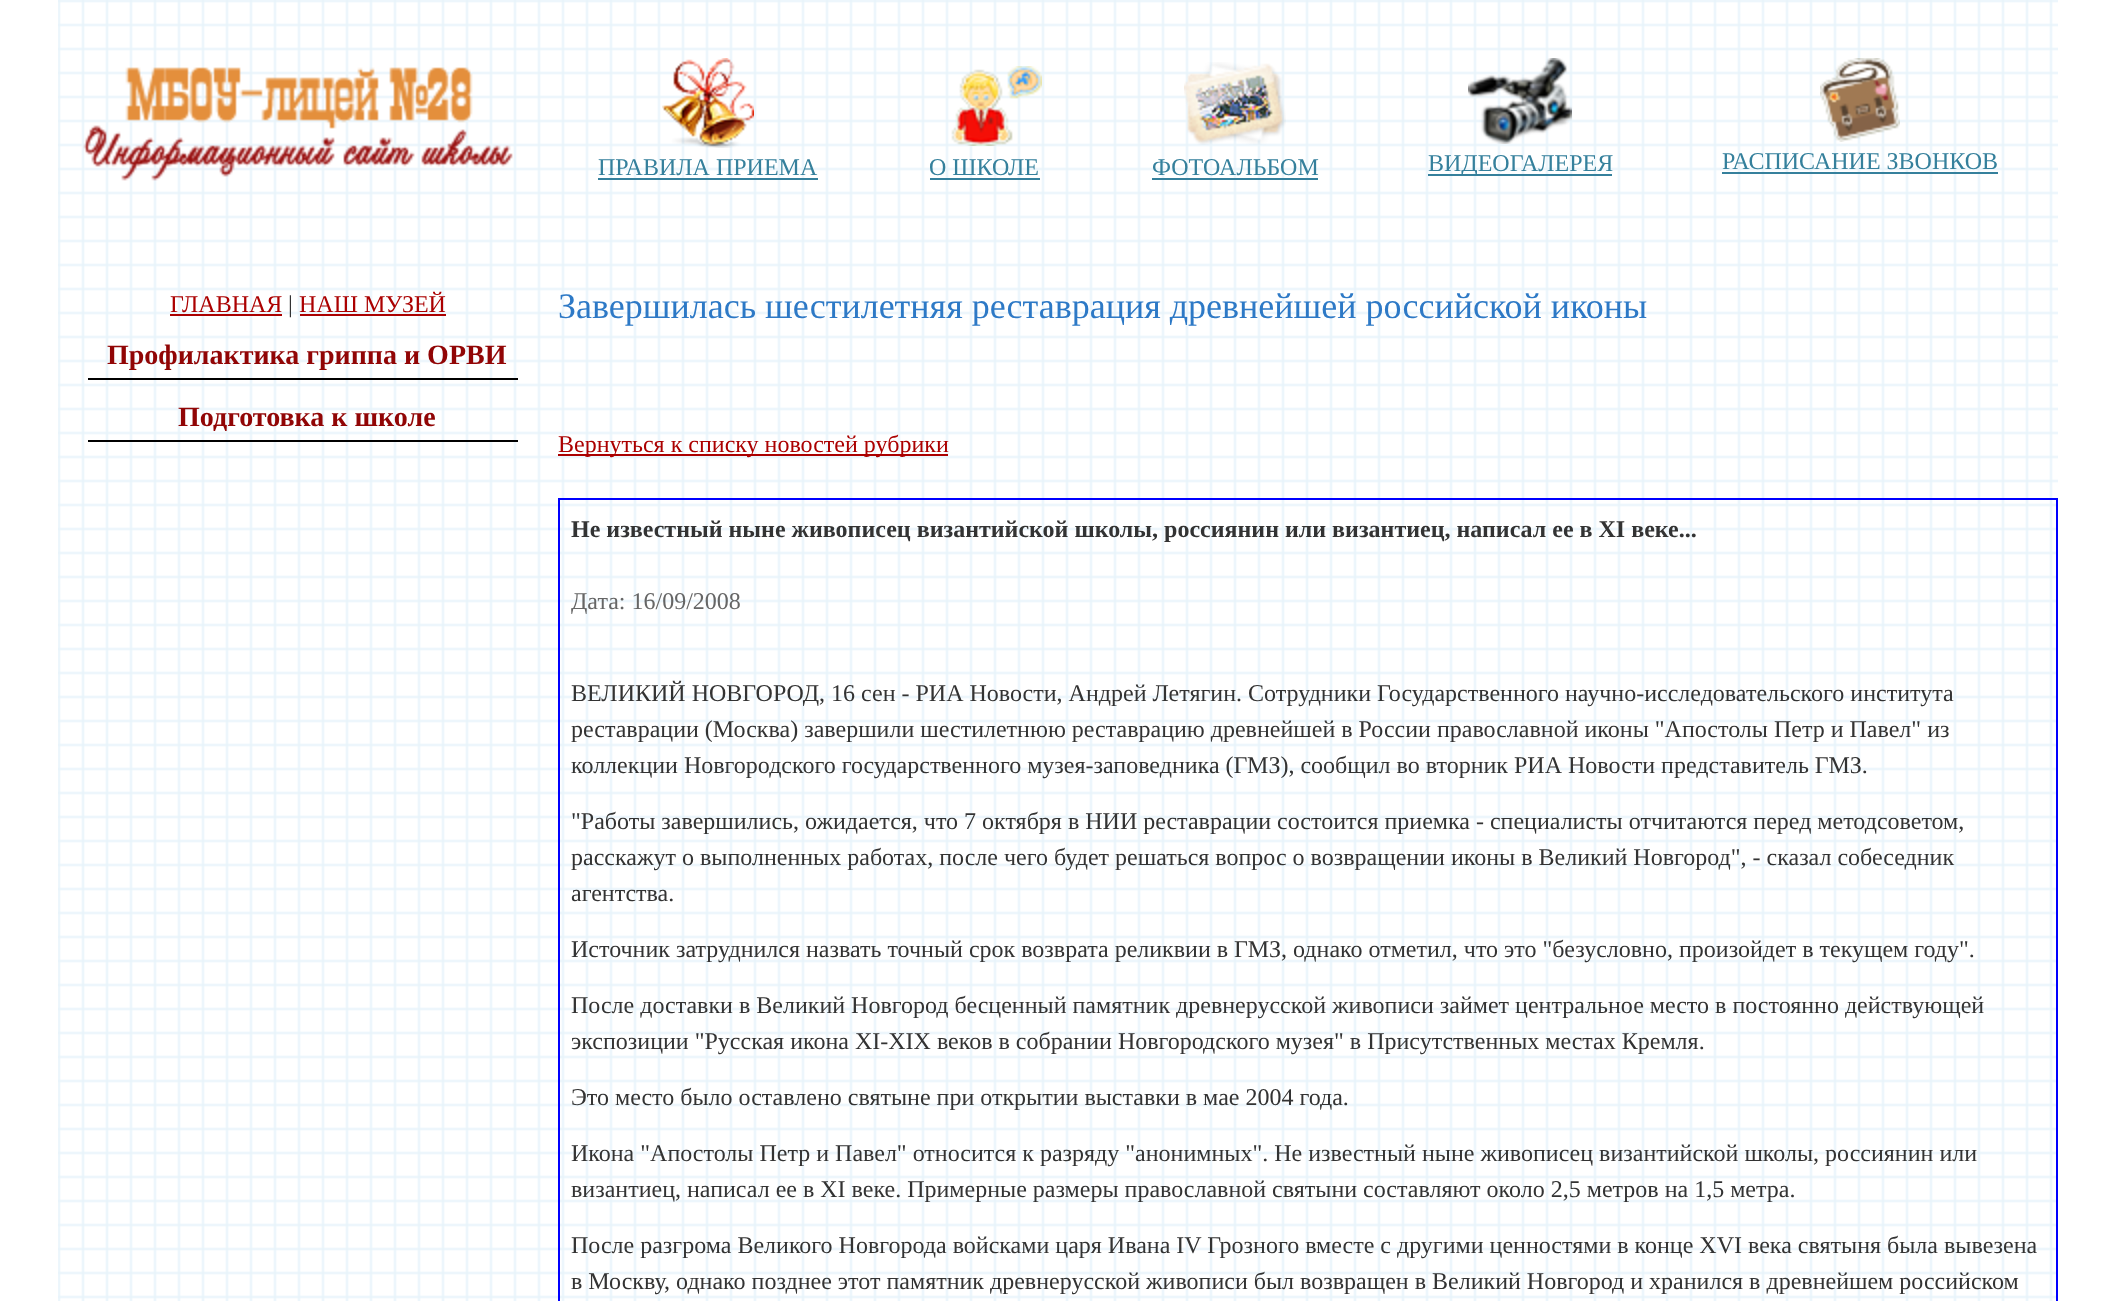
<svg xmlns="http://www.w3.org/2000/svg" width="2116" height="1301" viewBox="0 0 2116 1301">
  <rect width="100%" height="100%" fill="#fff"/>
  <image x="58" y="0" width="2000" height="1301" href="img/1.png"/>
  <image x="83" y="67" width="430" height="114" href="img/2.png"/>
  <image x="662" y="58" width="92" height="90" href="img/3.png"/>
  <path d="M598 178h220v2H598z" fill="#35809c"/>
  <image x="951" y="66" width="91" height="80" href="img/4.png"/>
  <path d="M930 178h110v2H930z" fill="#35809c"/>
  <image x="1184" y="62" width="102" height="83" href="img/5.png"/>
  <path d="M1152 178h166v2H1152z" fill="#35809c"/>
  <image x="1468" y="58" width="104" height="86" href="img/6.png"/>
  <path d="M1428 174h184v2H1428z" fill="#35809c"/>
  <image x="1820" y="58" width="80" height="84" href="img/7.png"/>
  <path d="M1722 172h276v2H1722z" fill="#35809c"/>
  <path d="M170 314h112v2H170z" fill="#ab0000"/>
  <path d="M300 314h146v2H300z" fill="#ab0000"/>
  <path d="M88 378h430v2H88z" fill="#000"/>
  <path d="M88 440h430v2H88z" fill="#000"/>
  <path d="M558 454h390v2H558z" fill="#ab0000"/>
  <path d="M558 498h1500v2H558z" fill="#00f"/>
  <path d="M2056 498h2v803H2056z" fill="#00f"/>
  <path d="M558 498h2v803H558z" fill="#00f"/>
  <g font-family="Liberation Serif" font-size="24" fill="#35809c">
    <text x="598" y="175">ПРАВИЛА ПРИЕМА</text>
    <text x="929" y="175">О ШКОЛЕ</text>
    <text x="1152" y="175">ФОТОАЛЬБОМ</text>
    <text x="1428" y="171">ВИДЕОГАЛЕРЕЯ</text>
    <text x="1722" y="169">РАСПИСАНИЕ ЗВОНКОВ</text>
  </g>
  <text x="170" y="312" font-family="Liberation Serif" font-size="24" fill="#ab0000">ГЛАВНАЯ</text>
  <text x="288" y="312" font-family="Liberation Serif" font-size="24" fill="#333">|</text>
  <text x="299" y="312" font-family="Liberation Serif" font-size="24" fill="#ab0000">НАШ МУЗЕЙ</text>
  <g font-family="Liberation Serif" font-size="28" font-weight="bold" fill="#910505">
    <text x="107" y="364">Профилактика гриппа и ОРВИ</text>
    <text x="178" y="426">Подготовка к школе</text>
  </g>
  <text x="558" y="318" font-family="Liberation Serif" font-size="36" fill="#2d79c6">Завершилась шестилетняя реставрация древнейшей российской иконы</text>
  <text x="558" y="452" font-family="Liberation Serif" font-size="24" fill="#ab0000">Вернуться к списку новостей рубрики</text>
  <text x="571" y="537" font-family="Liberation Serif" font-size="24" font-weight="bold" fill="#333">Не известный ныне живописец византийской школы, россиянин или византиец, написал ее в XI веке...</text>
  <text x="571" y="609" font-family="Liberation Serif" font-size="24" fill="#666">Дата: 16/09/2008</text>
  <g font-family="Liberation Serif" font-size="24" fill="#333">
    <text x="571" y="701">ВЕЛИКИЙ НОВГОРОД, 16 сен - РИА Новости, Андрей Летягин. Сотрудники Государственного научно-исследовательского института</text>
    <text x="571" y="737">реставрации (Москва) завершили шестилетнюю реставрацию древнейшей в России православной иконы "Апостолы Петр и Павел" из</text>
    <text x="571" y="773">коллекции Новгородского государственного музея-заповедника (ГМЗ), сообщил во вторник РИА Новости представитель ГМЗ.</text>
    <text x="571" y="829">"Работы завершились, ожидается, что 7 октября в НИИ реставрации состоится приемка - специалисты отчитаются перед методсоветом,</text>
    <text x="571" y="865">расскажут о выполненных работах, после чего будет решаться вопрос о возвращении иконы в Великий Новгород", - сказал собеседник</text>
    <text x="571" y="901">агентства.</text>
    <text x="571" y="957">Источник затруднился назвать точный срок возврата реликвии в ГМЗ, однако отметил, что это "безусловно, произойдет в текущем году".</text>
    <text x="571" y="1013">После доставки в Великий Новгород бесценный памятник древнерусской живописи займет центральное место в постоянно действующей</text>
    <text x="571" y="1049">экспозиции "Русская икона XI-XIX веков в собрании Новгородского музея" в Присутственных местах Кремля.</text>
    <text x="571" y="1105">Это место было оставлено святыне при открытии выставки в мае 2004 года.</text>
    <text x="571" y="1161">Икона "Апостолы Петр и Павел" относится к разряду "анонимных". Не известный ныне живописец византийской школы, россиянин или</text>
    <text x="571" y="1197">византиец, написал ее в XI веке. Примерные размеры православной святыни составляют около 2,5 метров на 1,5 метра.</text>
    <text x="571" y="1253">После разгрома Великого Новгорода войсками царя Ивана IV Грозного вместе с другими ценностями в конце XVI века святыня была вывезена</text>
    <text x="571" y="1289">в Москву, однако позднее этот памятник древнерусской живописи был возвращен в Великий Новгород и хранился в древнейшем российском</text>
  </g>
</svg>
